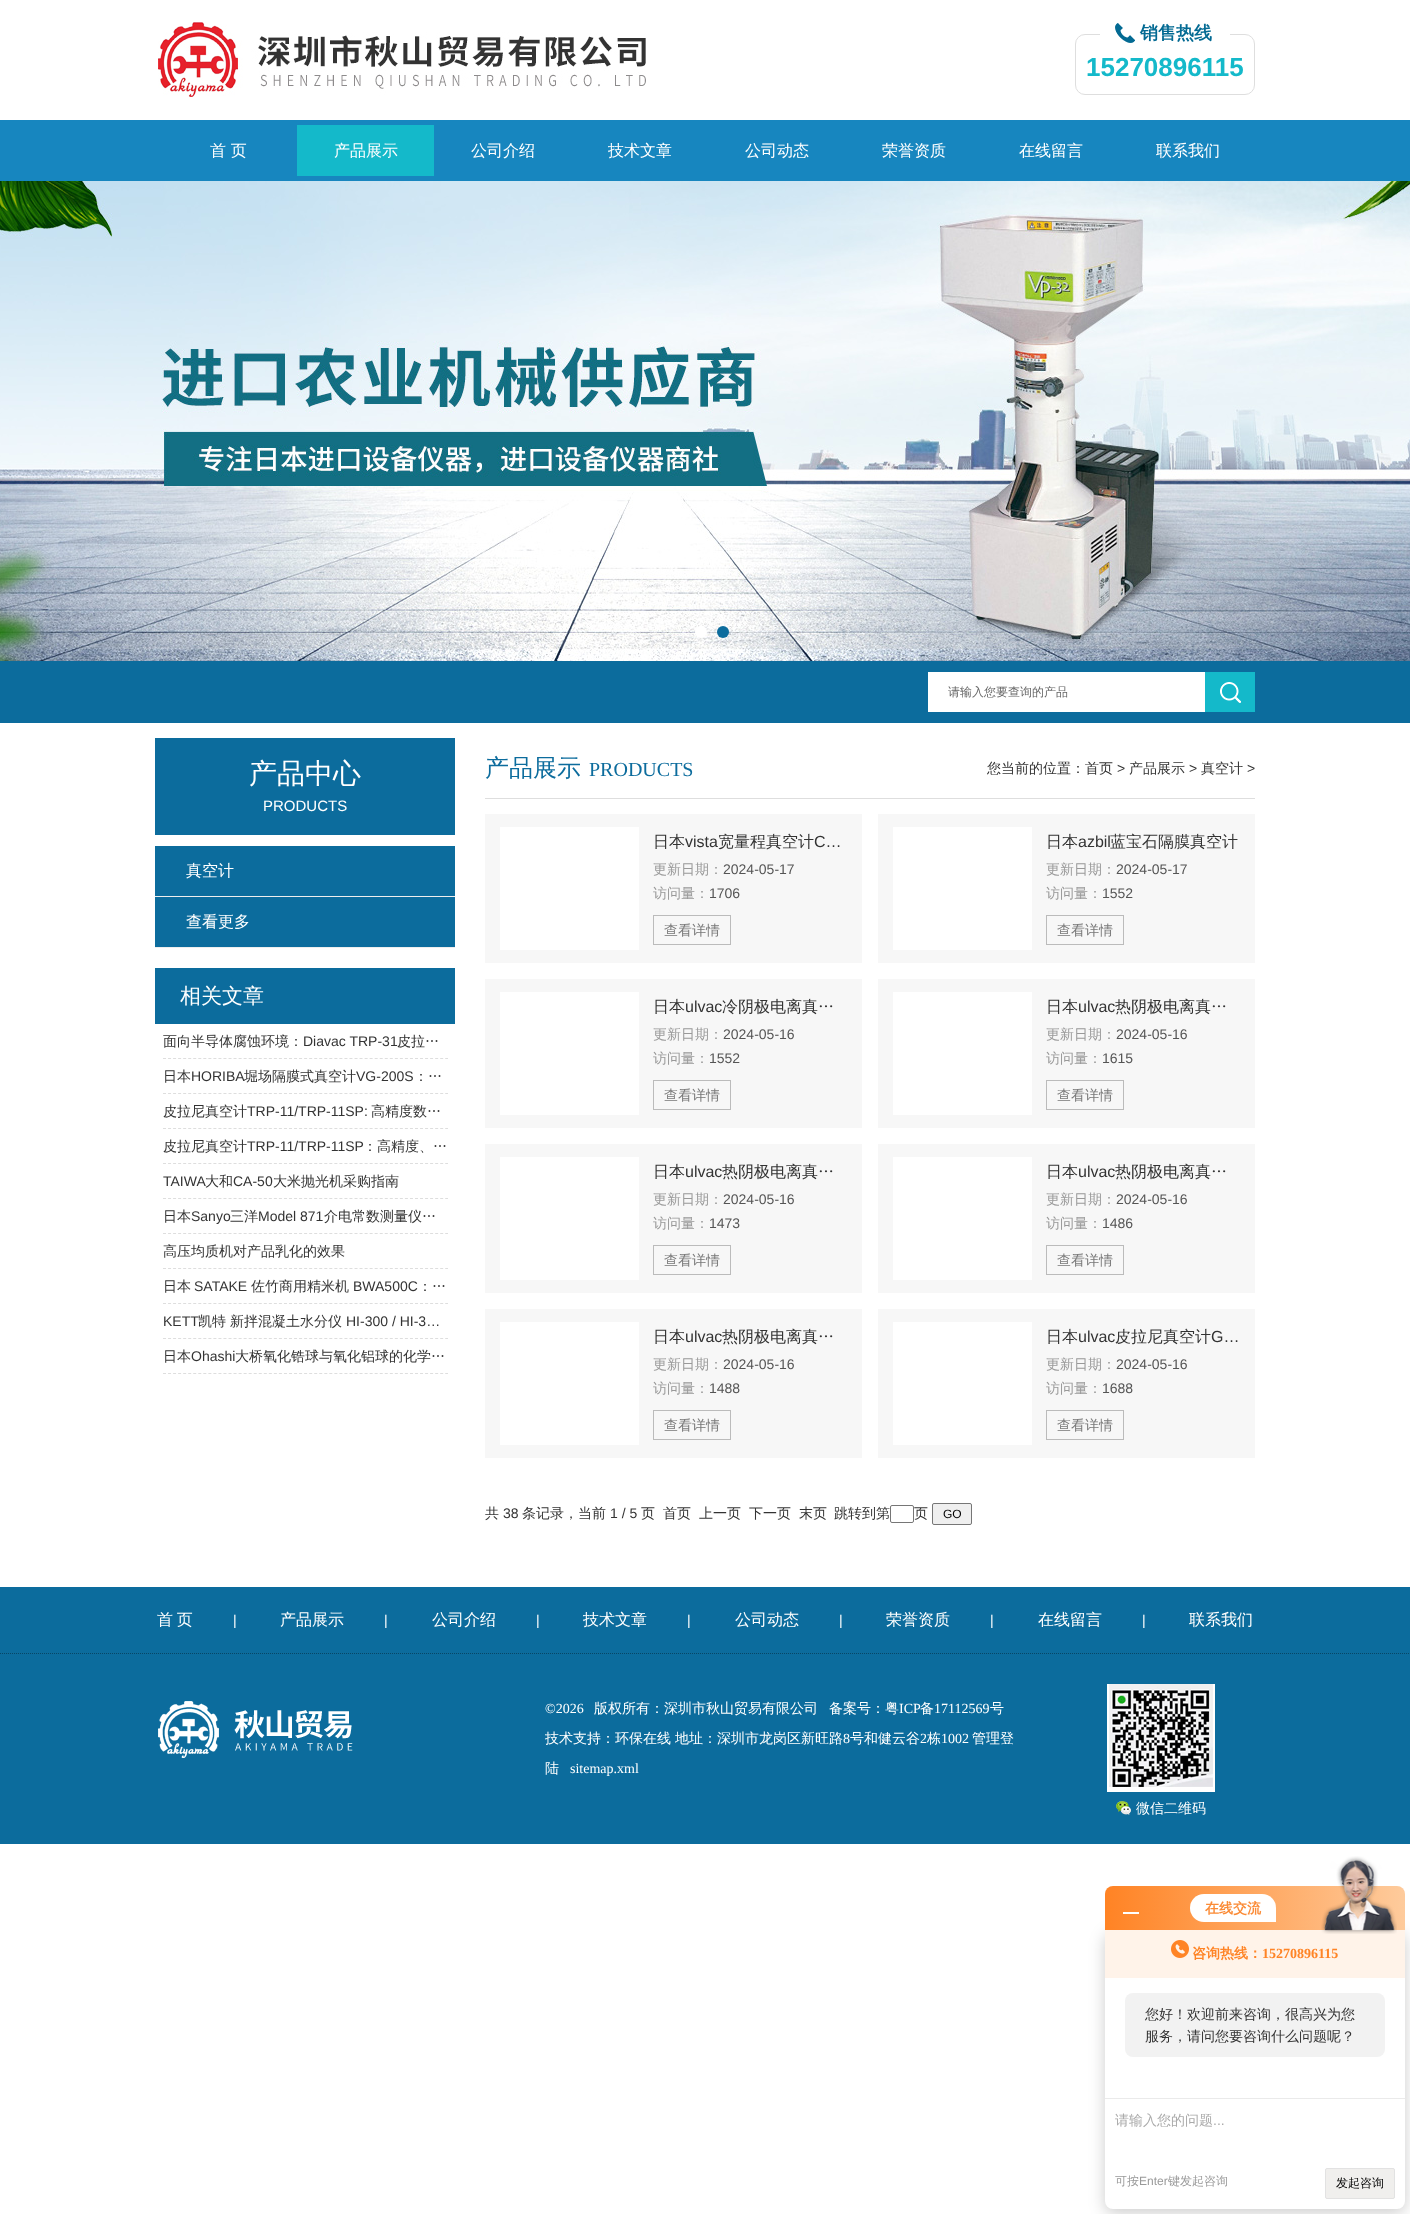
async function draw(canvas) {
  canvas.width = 1410;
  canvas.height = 2214;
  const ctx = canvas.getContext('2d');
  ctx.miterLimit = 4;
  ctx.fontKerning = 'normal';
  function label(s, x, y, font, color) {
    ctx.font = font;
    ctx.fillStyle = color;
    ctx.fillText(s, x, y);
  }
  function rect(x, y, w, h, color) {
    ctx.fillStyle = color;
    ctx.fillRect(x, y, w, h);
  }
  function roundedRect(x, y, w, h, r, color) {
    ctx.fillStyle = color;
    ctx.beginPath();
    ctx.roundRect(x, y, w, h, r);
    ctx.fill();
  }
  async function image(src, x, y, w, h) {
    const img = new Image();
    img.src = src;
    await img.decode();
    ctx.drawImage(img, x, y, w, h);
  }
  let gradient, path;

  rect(0, 0, 1410, 2214, '#fff');
  await image('assets/img1.png', 158, 22, 488, 75);
  ctx.beginPath();
  ctx.roundRect(1075.5, 34.5, 179, 60, 9.5);
  ctx.strokeStyle = '#dedede';
  ctx.stroke();
  rect(1100, 34, 130, 1, '#fff');
  await image('assets/img2.png', 1115, 23, 20, 20);
  label('销售热线', 1140, 39, 'bold 18px WenQuanYi Zen Hei', '#036a93');
  label('15270896115', 1086, 76, 'bold 26px Liberation Sans', '#14b9ca');
  rect(0, 120, 1410, 61, '#1786bf');
  label('首 页', 210, 156, '500 16px WenQuanYi Zen Hei', '#fff');
  rect(297, 125, 137, 51, '#14b9ca');
  label('产品展示', 334, 156, '500 16px WenQuanYi Zen Hei', '#fff');
  label('公司介绍', 471, 156, '500 16px WenQuanYi Zen Hei', '#fff');
  label('技术文章', 608, 156, '500 16px WenQuanYi Zen Hei', '#fff');
  label('公司动态', 745, 156, '500 16px WenQuanYi Zen Hei', '#fff');
  label('荣誉资质', 882, 156, '500 16px WenQuanYi Zen Hei', '#fff');
  label('在线留言', 1019, 156, '500 16px WenQuanYi Zen Hei', '#fff');
  label('联系我们', 1156, 156, '500 16px WenQuanYi Zen Hei', '#fff');
  await image('assets/img3.png', 0, 181, 1410, 480);
  ctx.beginPath();
  ctx.arc(701, 632, 6, 0, 2 * Math.PI);
  ctx.fill();
  ctx.fillStyle = '#0c6c9d';
  ctx.beginPath();
  ctx.arc(723, 632, 6, 0, 2 * Math.PI);
  ctx.fill();
  rect(0, 661, 1410, 62, '#0c6c9d');
  rect(928, 672, 277, 40, '#fff');
  label('请输入您要查询的产品', 948, 696, '500 12px WenQuanYi Zen Hei', '#666');
  rect(1205, 672, 50, 40, '#14b9ca');
  await image('assets/img4.png', 1220, 682, 21, 21);
  rect(155, 738, 300, 97, '#0c6c9d');
  label('产品中心', 249, 783, '500 28px WenQuanYi Zen Hei', '#fff');
  label('PRODUCTS', 263, 811, '15px Liberation Sans', '#fff');
  rect(155, 896, 300, 1, '#eee');
  rect(155, 846, 300, 50, '#0c6c9d');
  label('真空计', 186, 876, '500 16px WenQuanYi Zen Hei', '#fff');
  rect(155, 947, 300, 1, '#eee');
  rect(155, 897, 300, 50, '#0c6c9d');
  label('查看更多', 186, 927, '500 16px WenQuanYi Zen Hei', '#fff');
  rect(155, 968, 300, 56, '#0c6c9d');
  label('相关文章', 180, 1003, '500 21px WenQuanYi Zen Hei', '#fff');
  path = new Path2D('M163 1058.5H448');
  ctx.setLineDash([3, 2.04]);
  ctx.stroke(path);
  label('面向半导体腐蚀环境：', 163, 1046, '500 14px WenQuanYi Zen Hei', '#333');
  label('Diavac TRP-31', 303, 1046, '14px Liberation Sans', '#333');
  label('皮拉…', 397, 1046, '500 14px WenQuanYi Zen Hei', '#333');
  path = new Path2D('M163 1093.5H448');
  ctx.stroke(path);
  label('日本', 163, 1081, '500 14px WenQuanYi Zen Hei', '#333');
  label('HORIBA', 191, 1081, '14px Liberation Sans', '#333');
  label('堀场隔膜式真空计', 244, 1081, '500 14px WenQuanYi Zen Hei', '#333');
  label('VG-200S', 356, 1081, '14px Liberation Sans', '#333');
  label('：…', 414, 1081, '500 14px WenQuanYi Zen Hei', '#333');
  path = new Path2D('M163 1128.5H448');
  ctx.stroke(path);
  label('皮拉尼真空计', 163, 1116, '500 14px WenQuanYi Zen Hei', '#333');
  label('TRP-11/TRP-11SP:', 247, 1116, '14px Liberation Sans', '#333');
  label('高精度数…', 371, 1116, '500 14px WenQuanYi Zen Hei', '#333');
  path = new Path2D('M163 1163.5H448');
  ctx.stroke(path);
  label('皮拉尼真空计', 163, 1151, '500 14px WenQuanYi Zen Hei', '#333');
  label('TRP-11/TRP-11SP', 247, 1151, '14px Liberation Sans', '#333');
  label('：高精度、…', 363, 1151, '500 14px WenQuanYi Zen Hei', '#333');
  path = new Path2D('M163 1198.5H448');
  ctx.stroke(path);
  label('TAIWA', 163, 1186, '14px Liberation Sans', '#333');
  label('大和', 205, 1186, '500 14px WenQuanYi Zen Hei', '#333');
  label('CA-50', 233, 1186, '14px Liberation Sans', '#333');
  label('大米抛光机采购指南', 273, 1186, '500 14px WenQuanYi Zen Hei', '#333');
  path = new Path2D('M163 1233.5H448');
  ctx.stroke(path);
  label('日本', 163, 1221, '500 14px WenQuanYi Zen Hei', '#333');
  label('Sanyo', 191, 1221, '14px Liberation Sans', '#333');
  label('三洋', 230, 1221, '500 14px WenQuanYi Zen Hei', '#333');
  label('Model 871', 258, 1221, '14px Liberation Sans', '#333');
  label('介电常数测量仪…', 324, 1221, '500 14px WenQuanYi Zen Hei', '#333');
  path = new Path2D('M163 1268.5H448');
  ctx.stroke(path);
  label('高压均质机对产品乳化的效果', 163, 1256, '500 14px WenQuanYi Zen Hei', '#333');
  path = new Path2D('M163 1303.5H448');
  ctx.stroke(path);
  label('日本', 163, 1291, '500 14px WenQuanYi Zen Hei', '#333');
  label('SATAKE', 194, 1291, '14px Liberation Sans', '#333');
  label('佐竹商用精米机', 251, 1291, '500 14px WenQuanYi Zen Hei', '#333');
  label('BWA500C', 353, 1291, '14px Liberation Sans', '#333');
  label('：…', 418, 1291, '500 14px WenQuanYi Zen Hei', '#333');
  path = new Path2D('M163 1338.5H448');
  ctx.stroke(path);
  label('KETT', 163, 1326, '14px Liberation Sans', '#333');
  label('凯特', 198, 1326, '500 14px WenQuanYi Zen Hei', '#333');
  label('新拌混凝土水分仪', 230, 1326, '500 14px WenQuanYi Zen Hei', '#333');
  label('HI-300 / HI-3…', 346, 1326, '14px Liberation Sans', '#333');
  path = new Path2D('M163 1373.5H448');
  ctx.stroke(path);
  label('日本', 163, 1361, '500 14px WenQuanYi Zen Hei', '#333');
  label('Ohashi', 191, 1361, '14px Liberation Sans', '#333');
  label('大桥氧化锆球与氧化铝球的化学…', 235, 1361, '500 14px WenQuanYi Zen Hei', '#333');
  rect(485, 798, 770, 1, '#dedede');
  label('产品展示', 485, 776, '500 24px WenQuanYi Zen Hei', '#0c6c9d');
  label('PRODUCTS', 589, 776, '20px Liberation Serif', '#0c6c9d');
  label('您当前的位置：首页', 987, 773, '500 14px WenQuanYi Zen Hei', '#333');
  label('>', 1117, 773, '14px Liberation Sans', '#333');
  label('产品展示', 1129, 773, '500 14px WenQuanYi Zen Hei', '#333');
  label('>', 1189, 773, '14px Liberation Sans', '#333');
  label('真空计', 1201, 773, '500 14px WenQuanYi Zen Hei', '#333');
  label('>', 1247, 773, '14px Liberation Sans', '#333');
  rect(485, 814, 377, 149, '#f7f7f7');
  rect(500, 827, 139, 123, '#fff');
  label('日本', 653, 847, '500 16px WenQuanYi Zen Hei', '#333');
  label('vista', 685, 847, '16px Liberation Sans', '#333');
  label('宽量程真空计', 718, 847, '500 16px WenQuanYi Zen Hei', '#333');
  label('C…', 814, 847, '16px Liberation Sans', '#333');
  label('更新日期：', 653, 874, '500 14px WenQuanYi Zen Hei', '#999');
  label('2024-05-17', 723, 874, '14px Liberation Sans', '#555');
  label('访问量：', 653, 898, '500 14px WenQuanYi Zen Hei', '#999');
  label('1706', 709, 898, '14px Liberation Sans', '#555');
  ctx.strokeStyle = '#bbb';
  ctx.setLineDash([]);
  ctx.strokeRect(653.5, 915.5, 77, 29);
  label('查看详情', 664, 935, '500 14px WenQuanYi Zen Hei', '#787878');
  rect(878, 814, 377, 149, '#f7f7f7');
  rect(893, 827, 139, 123, '#fff');
  label('日本', 1046, 847, '500 16px WenQuanYi Zen Hei', '#333');
  label('azbil', 1078, 847, '16px Liberation Sans', '#333');
  label('蓝宝石隔膜真空计', 1110, 847, '500 16px WenQuanYi Zen Hei', '#333');
  label('更新日期：', 1046, 874, '500 14px WenQuanYi Zen Hei', '#999');
  label('2024-05-17', 1116, 874, '14px Liberation Sans', '#555');
  label('访问量：', 1046, 898, '500 14px WenQuanYi Zen Hei', '#999');
  label('1552', 1102, 898, '14px Liberation Sans', '#555');
  ctx.strokeRect(1046.5, 915.5, 77, 29);
  label('查看详情', 1057, 935, '500 14px WenQuanYi Zen Hei', '#787878');
  rect(485, 979, 377, 149, '#f7f7f7');
  rect(500, 992, 139, 123, '#fff');
  label('日本', 653, 1012, '500 16px WenQuanYi Zen Hei', '#333');
  label('ulvac', 685, 1012, '16px Liberation Sans', '#333');
  label('冷阴极电离真…', 722, 1012, '500 16px WenQuanYi Zen Hei', '#333');
  label('更新日期：', 653, 1039, '500 14px WenQuanYi Zen Hei', '#999');
  label('2024-05-16', 723, 1039, '14px Liberation Sans', '#555');
  label('访问量：', 653, 1063, '500 14px WenQuanYi Zen Hei', '#999');
  label('1552', 709, 1063, '14px Liberation Sans', '#555');
  ctx.strokeRect(653.5, 1080.5, 77, 29);
  label('查看详情', 664, 1100, '500 14px WenQuanYi Zen Hei', '#787878');
  rect(878, 979, 377, 149, '#f7f7f7');
  rect(893, 992, 139, 123, '#fff');
  label('日本', 1046, 1012, '500 16px WenQuanYi Zen Hei', '#333');
  label('ulvac', 1078, 1012, '16px Liberation Sans', '#333');
  label('热阴极电离真…', 1115, 1012, '500 16px WenQuanYi Zen Hei', '#333');
  label('更新日期：', 1046, 1039, '500 14px WenQuanYi Zen Hei', '#999');
  label('2024-05-16', 1116, 1039, '14px Liberation Sans', '#555');
  label('访问量：', 1046, 1063, '500 14px WenQuanYi Zen Hei', '#999');
  label('1615', 1102, 1063, '14px Liberation Sans', '#555');
  ctx.strokeRect(1046.5, 1080.5, 77, 29);
  label('查看详情', 1057, 1100, '500 14px WenQuanYi Zen Hei', '#787878');
  rect(485, 1144, 377, 149, '#f7f7f7');
  rect(500, 1157, 139, 123, '#fff');
  label('日本', 653, 1177, '500 16px WenQuanYi Zen Hei', '#333');
  label('ulvac', 685, 1177, '16px Liberation Sans', '#333');
  label('热阴极电离真…', 722, 1177, '500 16px WenQuanYi Zen Hei', '#333');
  label('更新日期：', 653, 1204, '500 14px WenQuanYi Zen Hei', '#999');
  label('2024-05-16', 723, 1204, '14px Liberation Sans', '#555');
  label('访问量：', 653, 1228, '500 14px WenQuanYi Zen Hei', '#999');
  label('1473', 709, 1228, '14px Liberation Sans', '#555');
  ctx.strokeRect(653.5, 1245.5, 77, 29);
  label('查看详情', 664, 1265, '500 14px WenQuanYi Zen Hei', '#787878');
  rect(878, 1144, 377, 149, '#f7f7f7');
  rect(893, 1157, 139, 123, '#fff');
  label('日本', 1046, 1177, '500 16px WenQuanYi Zen Hei', '#333');
  label('ulvac', 1078, 1177, '16px Liberation Sans', '#333');
  label('热阴极电离真…', 1115, 1177, '500 16px WenQuanYi Zen Hei', '#333');
  label('更新日期：', 1046, 1204, '500 14px WenQuanYi Zen Hei', '#999');
  label('2024-05-16', 1116, 1204, '14px Liberation Sans', '#555');
  label('访问量：', 1046, 1228, '500 14px WenQuanYi Zen Hei', '#999');
  label('1486', 1102, 1228, '14px Liberation Sans', '#555');
  ctx.strokeRect(1046.5, 1245.5, 77, 29);
  label('查看详情', 1057, 1265, '500 14px WenQuanYi Zen Hei', '#787878');
  rect(485, 1309, 377, 149, '#f7f7f7');
  rect(500, 1322, 139, 123, '#fff');
  label('日本', 653, 1342, '500 16px WenQuanYi Zen Hei', '#333');
  label('ulvac', 685, 1342, '16px Liberation Sans', '#333');
  label('热阴极电离真…', 722, 1342, '500 16px WenQuanYi Zen Hei', '#333');
  label('更新日期：', 653, 1369, '500 14px WenQuanYi Zen Hei', '#999');
  label('2024-05-16', 723, 1369, '14px Liberation Sans', '#555');
  label('访问量：', 653, 1393, '500 14px WenQuanYi Zen Hei', '#999');
  label('1488', 709, 1393, '14px Liberation Sans', '#555');
  ctx.strokeRect(653.5, 1410.5, 77, 29);
  label('查看详情', 664, 1430, '500 14px WenQuanYi Zen Hei', '#787878');
  rect(878, 1309, 377, 149, '#f7f7f7');
  rect(893, 1322, 139, 123, '#fff');
  label('日本', 1046, 1342, '500 16px WenQuanYi Zen Hei', '#333');
  label('ulvac', 1078, 1342, '16px Liberation Sans', '#333');
  label('皮拉尼真空计', 1115, 1342, '500 16px WenQuanYi Zen Hei', '#333');
  label('G…', 1211, 1342, '16px Liberation Sans', '#333');
  label('更新日期：', 1046, 1369, '500 14px WenQuanYi Zen Hei', '#999');
  label('2024-05-16', 1116, 1369, '14px Liberation Sans', '#555');
  label('访问量：', 1046, 1393, '500 14px WenQuanYi Zen Hei', '#999');
  label('1688', 1102, 1393, '14px Liberation Sans', '#555');
  ctx.strokeRect(1046.5, 1410.5, 77, 29);
  label('查看详情', 1057, 1430, '500 14px WenQuanYi Zen Hei', '#787878');
  label('共', 485, 1518, '500 14px WenQuanYi Zen Hei', '#333');
  label('38', 503, 1518, '14px Liberation Sans', '#333');
  label('条记录，当前', 522, 1518, '500 14px WenQuanYi Zen Hei', '#333');
  label('1 / 5', 610, 1518, '14px Liberation Sans', '#333');
  label('页', 641, 1518, '500 14px WenQuanYi Zen Hei', '#333');
  label('首页', 663, 1518, '500 14px WenQuanYi Zen Hei', '#333');
  label('上一页', 699, 1518, '500 14px WenQuanYi Zen Hei', '#333');
  label('下一页', 749, 1518, '500 14px WenQuanYi Zen Hei', '#333');
  label('末页', 799, 1518, '500 14px WenQuanYi Zen Hei', '#333');
  label('跳转到第', 834, 1518, '500 14px WenQuanYi Zen Hei', '#333');
  ctx.beginPath();
  ctx.roundRect(890.5, 1505.5, 23, 17, 1.5);
  ctx.strokeStyle = '#767676';
  ctx.stroke();
  label('页', 914, 1518, '500 14px WenQuanYi Zen Hei', '#333');
  ctx.fillStyle = '#efefef';
  ctx.beginPath();
  ctx.roundRect(932.5, 1503.5, 39, 21, 1.5);
  ctx.fill();
  ctx.stroke();
  label('GO', 943, 1518, '12px Liberation Sans', '#000');
  rect(0, 1587, 1410, 257, '#0c6c9d');
  path = new Path2D('M0 1653.5H1410');
  ctx.strokeStyle = '#084665';
  ctx.setLineDash([1, 1]);
  ctx.stroke(path);
  ctx.wordSpacing = '-1px';
  label('首 页', 157, 1625, '500 16px WenQuanYi Zen Hei', '#fff');
  ctx.wordSpacing = '0px';
  label('|', 233, 1625, '14px Liberation Sans', '#fff');
  label('产品展示', 280, 1625, '500 16px WenQuanYi Zen Hei', '#fff');
  label('|', 384, 1625, '14px Liberation Sans', '#fff');
  label('公司介绍', 432, 1625, '500 16px WenQuanYi Zen Hei', '#fff');
  label('|', 536, 1625, '14px Liberation Sans', '#fff');
  label('技术文章', 583, 1625, '500 16px WenQuanYi Zen Hei', '#fff');
  label('|', 687, 1625, '14px Liberation Sans', '#fff');
  label('公司动态', 735, 1625, '500 16px WenQuanYi Zen Hei', '#fff');
  label('|', 839, 1625, '14px Liberation Sans', '#fff');
  label('荣誉资质', 886, 1625, '500 16px WenQuanYi Zen Hei', '#fff');
  label('|', 990, 1625, '14px Liberation Sans', '#fff');
  label('在线留言', 1038, 1625, '500 16px WenQuanYi Zen Hei', '#fff');
  label('|', 1142, 1625, '14px Liberation Sans', '#fff');
  label('联系我们', 1189, 1625, '500 16px WenQuanYi Zen Hei', '#fff');
  await image('assets/img5.png', 158, 1701, 195, 57);
  label('©2026', 545, 1713, '14px Liberation Serif', '#fff');
  label('版权所有：深圳市秋山贸易有限公司', 594, 1713, '500 14px WenQuanYi Zen Hei', '#fff');
  label('备案号：粤', 829, 1713, '500 14px WenQuanYi Zen Hei', '#fff');
  label('ICP', 899, 1713, '14px Liberation Serif', '#fff');
  label('备', 920, 1713, '500 14px WenQuanYi Zen Hei', '#fff');
  label('17112569', 934, 1713, '14px Liberation Serif', '#fff');
  label('号', 990, 1713, '500 14px WenQuanYi Zen Hei', '#fff');
  label('技术支持：环保在线', 545, 1743, '500 14px WenQuanYi Zen Hei', '#fff');
  label('地址：深圳市龙岗区新旺路', 675, 1743, '500 14px WenQuanYi Zen Hei', '#fff');
  label('8', 843, 1743, '14px Liberation Serif', '#fff');
  label('号和健云谷', 850, 1743, '500 14px WenQuanYi Zen Hei', '#fff');
  label('2', 920, 1743, '14px Liberation Serif', '#fff');
  label('栋', 927, 1743, '500 14px WenQuanYi Zen Hei', '#fff');
  label('1002', 941, 1743, '14px Liberation Serif', '#fff');
  label('管理登', 972, 1743, '500 14px WenQuanYi Zen Hei', '#fff');
  label('陆', 545, 1773, '500 14px WenQuanYi Zen Hei', '#fff');
  label('sitemap.xml', 570, 1773, '14px Liberation Serif', '#fff');
  await image('assets/img6.png', 1107, 1684, 108, 108);
  await image('assets/img7.png', 1116, 1801, 15, 14);
  label('微信二维码', 1136, 1813, '500 14px WenQuanYi Zen Hei', '#fff');
  ctx.fillStyle = '#00000033';
  ctx.filter = 'blur(8px)';
  ctx.beginPath();
  ctx.roundRect(1105, 1934, 300, 279, 8);
  ctx.fill();
  ctx.filter = 'none';
  gradient = ctx.createLinearGradient(1105, 1908, 1405, 1908);
  gradient.addColorStop(0, '#ff8324');
  gradient.addColorStop(1, '#fecb9c');
  ctx.fillStyle = gradient;
  ctx.beginPath();
  ctx.roundRect(1105, 1886, 300, 44, [8, 8, 0, 0]);
  ctx.fill();
  rect(1123, 1912, 16, 2, '#fff');
  ctx.beginPath();
  ctx.roundRect(1190, 1894, 86, 28, [14, 14, 0, 14]);
  ctx.fill();
  label('在线交流', 1205, 1913, 'bold 14px WenQuanYi Zen Hei', '#fb8b36');
  ctx.fillStyle = '#fff';
  ctx.beginPath();
  ctx.roundRect(1105, 1930, 300, 279, [0, 0, 8, 8]);
  ctx.fill();
  rect(1105, 1930, 300, 48, '#fff3e9');
  await image('assets/img8.png', 1321, 1856, 76, 78);
  await image('assets/img9.png', 1171, 1940, 18, 18);
  label('咨询热线：', 1192, 1958, 'bold 14px WenQuanYi Zen Hei', '#ff8426');
  label('15270896115', 1262, 1958, 'bold 14px Liberation Serif', '#ff8426');
  roundedRect(1125, 1993, 260, 64, 8, '#f2f2f2');
  label('您好！欢迎前来咨询，很高兴为您', 1145, 2019, '500 14px WenQuanYi Zen Hei', '#333');
  label('服务，请问您要咨询什么问题呢？', 1145, 2041, '500 14px WenQuanYi Zen Hei', '#333');
  rect(1105, 2098, 300, 1, '#eaeaea');
  label('请输入您的问题', 1115, 2125, '500 14px WenQuanYi Zen Hei', '#aaa');
  label('...', 1213, 2125, '14px Liberation Sans', '#aaa');
  label('可按', 1115, 2185, '500 12px WenQuanYi Zen Hei', '#999');
  label('Enter', 1139, 2185, '12px Liberation Sans', '#999');
  label('键发起咨询', 1168, 2185, '500 12px WenQuanYi Zen Hei', '#999');
  ctx.fillStyle = '#f0efed';
  ctx.beginPath();
  ctx.roundRect(1325.5, 2168.5, 69, 30, 1.5);
  ctx.fill();
  ctx.strokeStyle = '#e2e2e2';
  ctx.setLineDash([]);
  ctx.stroke();
  label('发起咨询', 1336, 2187, '500 12px WenQuanYi Zen Hei', '#000');
}

draw(document.querySelector('canvas'));
